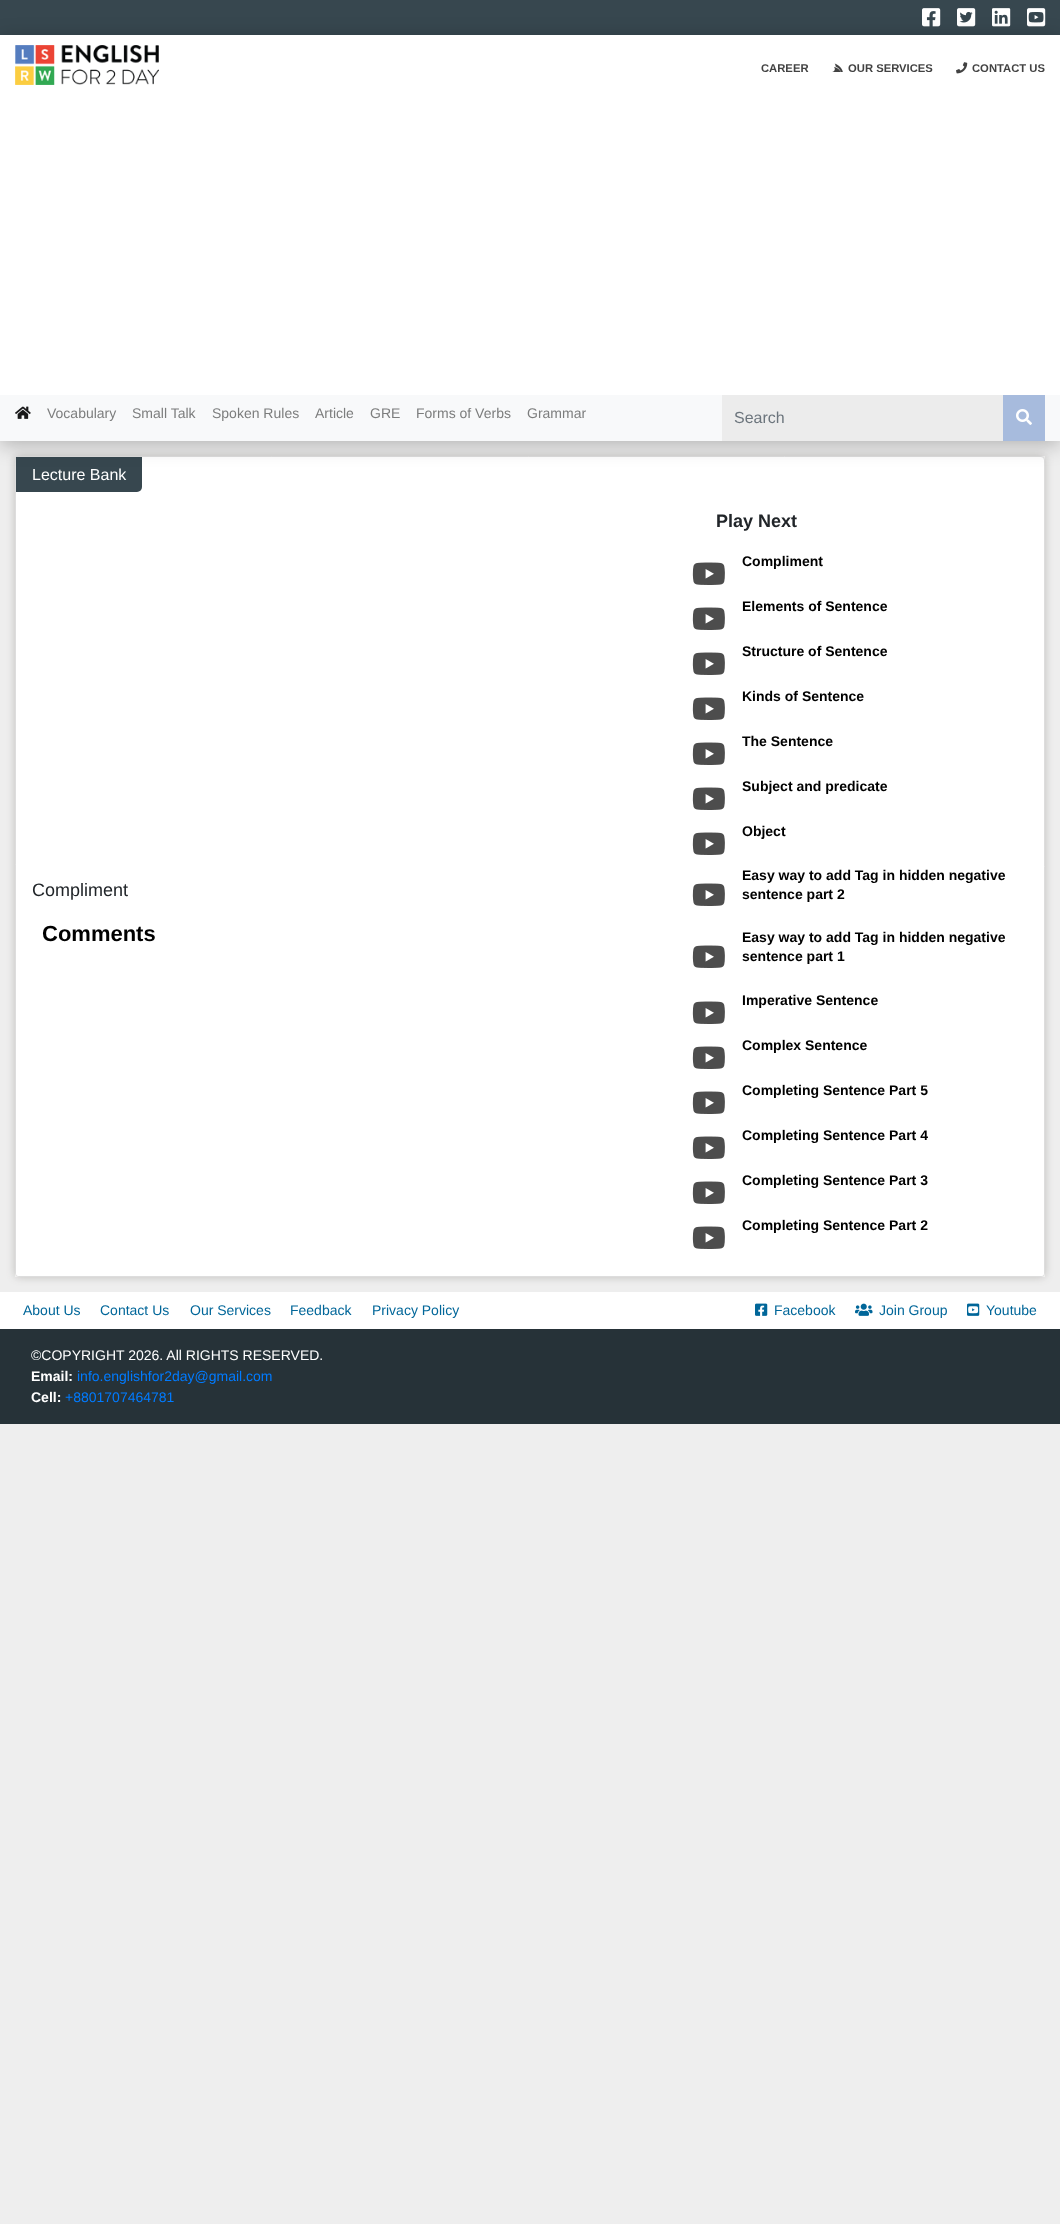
async function draw(canvas) {
  canvas.width = 1060;
  canvas.height = 2224;
  const ctx = canvas.getContext('2d');
  ctx.miterLimit = 4;
  ctx.fontKerning = 'normal';
  function label(s, x, y, font, color) {
    ctx.font = font;
    ctx.fillStyle = color;
    ctx.fillText(s, x, y);
  }
  function rect(x, y, w, h, color) {
    ctx.fillStyle = color;
    ctx.fillRect(x, y, w, h);
  }
  async function image(src, x, y, w, h) {
    const img = new Image();
    img.src = src;
    await img.decode();
    ctx.drawImage(img, x, y, w, h);
  }

  rect(0, 0, 1060, 2224, '#eee');
  rect(0, 0, 1060, 35, '#37474f');
  await image('assets/img1.png', 922, 8, 19, 19);
  await image('assets/img2.png', 957, 8, 19, 19);
  await image('assets/img3.png', 992, 8, 19, 19);
  await image('assets/img4.png', 1027, 8, 19, 19);
  rect(15, 456, 1030, 821, '#fff');
  ctx.fillStyle = '#3a332e42';
  ctx.filter = 'blur(4px)';
  ctx.beginPath();
  ctx.roundRect(15, 456, 1030, 821, 4);
  ctx.fill();
  ctx.filter = 'none';
  ctx.fillStyle = '#fff';
  ctx.beginPath();
  ctx.roundRect(15.5, 456.5, 1029, 820, [0, 3.5, 3.5, 3.5]);
  ctx.fill();
  ctx.strokeStyle = '#ddd';
  ctx.stroke();
  ctx.fillStyle = '#37474f';
  ctx.beginPath();
  ctx.roundRect(16, 457, 126, 35, [0, 0, 5, 0]);
  ctx.fill();
  ctx.fillStyle = '#00000040';
  ctx.filter = 'blur(10px)';
  ctx.beginPath();
  ctx.rect(0, 39, 1060, 406);
  ctx.fill();
  ctx.filter = 'none';
  rect(0, 35, 1060, 360, '#fff');
  await image('assets/img5.png', 15, 45, 144, 40);
  label('CAREER', 761, 72, 'bold 11.25px Liberation Sans', '#424242');
  await image('assets/img6.png', 832, 63, 11, 9);
  label('OUR SERVICES', 848, 72, 'bold 11.25px Liberation Sans', '#424242');
  await image('assets/img7.png', 956, 62, 12, 12);
  label('CONTACT US', 972, 72, 'bold 11.25px Liberation Sans', '#424242');
  rect(0, 395, 1060, 46, '#f8f9fa');
  await image('assets/img8.png', 15, 406, 16, 13);
  label('Vocabulary', 47, 418, '14px Liberation Sans', '#7c7d7d');
  label('Small Talk', 132, 418, '14px Liberation Sans', '#7c7d7d');
  label('Spoken Rules', 212, 418, '14px Liberation Sans', '#7c7d7d');
  label('Article', 315, 418, '14px Liberation Sans', '#7c7d7d');
  label('GRE', 370, 418, '14px Liberation Sans', '#7c7d7d');
  label('Forms of Verbs', 416, 418, '14px Liberation Sans', '#7c7d7d');
  label('Grammar', 527, 418, '14px Liberation Sans', '#7c7d7d');
  rect(722, 395, 281, 46, '#ececec');
  label('Search', 734, 423, '16px Liberation Sans', '#6c757d');
  rect(1003, 395, 42, 46, '#a7bbdd');
  await image('assets/img9.png', 1016, 409, 16, 16);
  label('Lecture Bank', 32, 480, '16px Liberation Sans', '#fff');
  ctx.beginPath();
  ctx.roundRect(16, 492, 1028, 784, [0, 0, 3, 3]);
  ctx.fill();
  label('Compliment', 32, 896, '18px Liberation Sans', '#212529');
  label('Comments', 42, 941, 'bold 22px Liberation Sans', '#000');
  label('Play Next', 716, 527, 'bold 18px Liberation Sans', '#212529');
  await image('assets/img10.png', 692, 562, 33, 23);
  label('Compliment', 742, 566, 'bold 14px Liberation Sans', '#000');
  await image('assets/img10.png', 692, 607, 33, 23);
  label('Elements of Sentence', 742, 611, 'bold 14px Liberation Sans', '#000');
  await image('assets/img10.png', 692, 652, 33, 23);
  label('Structure of Sentence', 742, 656, 'bold 14px Liberation Sans', '#000');
  await image('assets/img10.png', 692, 697, 33, 23);
  label('Kinds of Sentence', 742, 701, 'bold 14px Liberation Sans', '#000');
  await image('assets/img10.png', 692, 742, 33, 23);
  label('The Sentence', 742, 746, 'bold 14px Liberation Sans', '#000');
  await image('assets/img10.png', 692, 787, 33, 23);
  label('Subject and predicate', 742, 791, 'bold 14px Liberation Sans', '#000');
  await image('assets/img10.png', 692, 832, 33, 23);
  label('Object', 742, 836, 'bold 14px Liberation Sans', '#000');
  await image('assets/img10.png', 692, 883, 33, 23);
  label('Easy way to add Tag in hidden negative', 742, 880, 'bold 14px Liberation Sans', '#000');
  label('sentence part 2', 742, 899, 'bold 14px Liberation Sans', '#000');
  await image('assets/img10.png', 692, 945, 33, 23);
  label('Easy way to add Tag in hidden negative', 742, 942, 'bold 14px Liberation Sans', '#000');
  label('sentence part 1', 742, 961, 'bold 14px Liberation Sans', '#000');
  await image('assets/img10.png', 692, 1001, 33, 23);
  label('Imperative Sentence', 742, 1005, 'bold 14px Liberation Sans', '#000');
  await image('assets/img10.png', 692, 1046, 33, 23);
  label('Complex Sentence', 742, 1050, 'bold 14px Liberation Sans', '#000');
  await image('assets/img10.png', 692, 1091, 33, 23);
  label('Completing Sentence Part 5', 742, 1095, 'bold 14px Liberation Sans', '#000');
  await image('assets/img10.png', 692, 1136, 33, 23);
  label('Completing Sentence Part 4', 742, 1140, 'bold 14px Liberation Sans', '#000');
  await image('assets/img10.png', 692, 1181, 33, 23);
  label('Completing Sentence Part 3', 742, 1185, 'bold 14px Liberation Sans', '#000');
  await image('assets/img10.png', 692, 1226, 33, 23);
  label('Completing Sentence Part 2', 742, 1230, 'bold 14px Liberation Sans', '#000');
  rect(0, 1292, 1060, 37, '#fff');
  label('About Us', 23, 1315, '14px Liberation Sans', '#069');
  label('Contact Us', 100, 1315, '14px Liberation Sans', '#069');
  label('Our Services', 190, 1315, '14px Liberation Sans', '#069');
  label('Feedback', 290, 1315, '14px Liberation Sans', '#069');
  label('Privacy Policy', 372, 1315, '14px Liberation Sans', '#069');
  await image('assets/img11.png', 755, 1303, 13, 13);
  label('Facebook', 774, 1315, '14px Liberation Sans', '#069');
  await image('assets/img12.png', 855, 1303, 18, 13);
  label('Join Group', 879, 1315, '14px Liberation Sans', '#069');
  await image('assets/img13.png', 967, 1303, 13, 13);
  label('Youtube', 986, 1315, '14px Liberation Sans', '#069');
  rect(0, 1329, 1060, 95, '#263238');
  label('©COPYRIGHT 2026. All RIGHTS RESERVED.', 31, 1360, '14px Liberation Sans', '#fff');
  label('Email:', 31, 1381, 'bold 14px Liberation Sans', '#fff');
  label('info.englishfor2day@gmail.com', 77, 1381, '14px Liberation Sans', '#007bff');
  label('Cell:', 31, 1402, 'bold 14px Liberation Sans', '#fff');
  label('+8801707464781', 65, 1402, '14px Liberation Sans', '#007bff');
}

draw(document.querySelector('canvas'));
